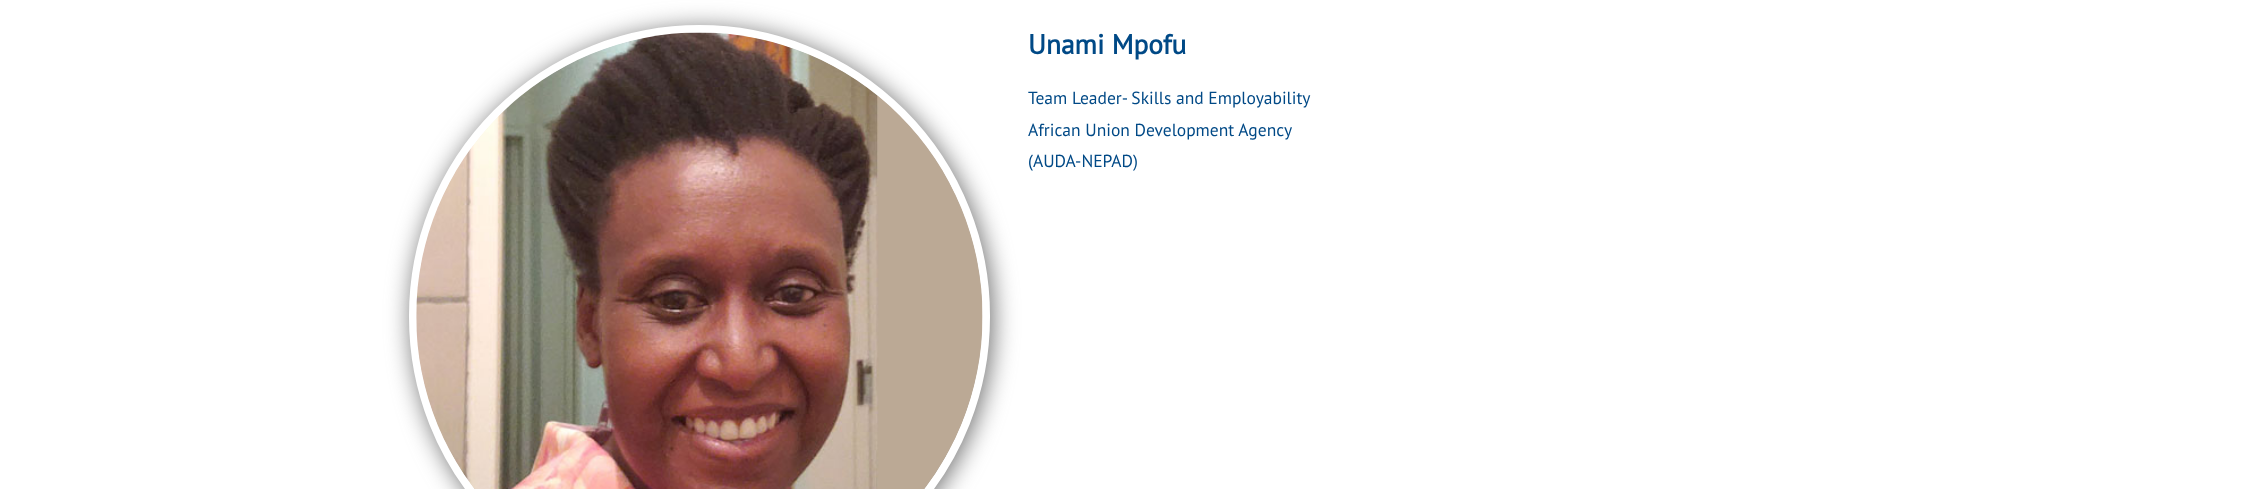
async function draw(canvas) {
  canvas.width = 2266;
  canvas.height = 489;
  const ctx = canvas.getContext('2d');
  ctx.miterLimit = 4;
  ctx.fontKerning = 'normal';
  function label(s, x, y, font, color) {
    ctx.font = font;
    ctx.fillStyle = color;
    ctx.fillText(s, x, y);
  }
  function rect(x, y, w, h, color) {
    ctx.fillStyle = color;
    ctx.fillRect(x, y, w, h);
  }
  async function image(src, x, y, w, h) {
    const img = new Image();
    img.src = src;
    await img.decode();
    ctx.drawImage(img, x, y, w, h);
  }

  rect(0, 0, 2266, 489, '#fff');
  ctx.fillStyle = '#717171';
  ctx.filter = 'blur(12.5px)';
  ctx.beginPath();
  ctx.roundRect(411, 28, 582, 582, 291);
  ctx.fill();
  ctx.filter = 'none';
  ctx.beginPath();
  ctx.roundRect(413, 29, 573, 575, 286.5);
  ctx.strokeStyle = '#fff';
  ctx.lineWidth = 8;
  ctx.stroke();
  await image('assets/img1.png', 416, 32, 567, 457);
  label('Unami Mpofu', 1028, 54, 'bold 27.5px PT Sans', '#004986');
  label('Team Leader- Skills and Employability', 1028, 104, '17.5px PT Sans', '#004986');
  label('African Union Development Agency', 1028, 136, '17.5px PT Sans', '#004986');
  label('(AUDA-NEPAD)', 1028, 167, '17.5px PT Sans', '#004986');
}

draw(document.querySelector('canvas'));
